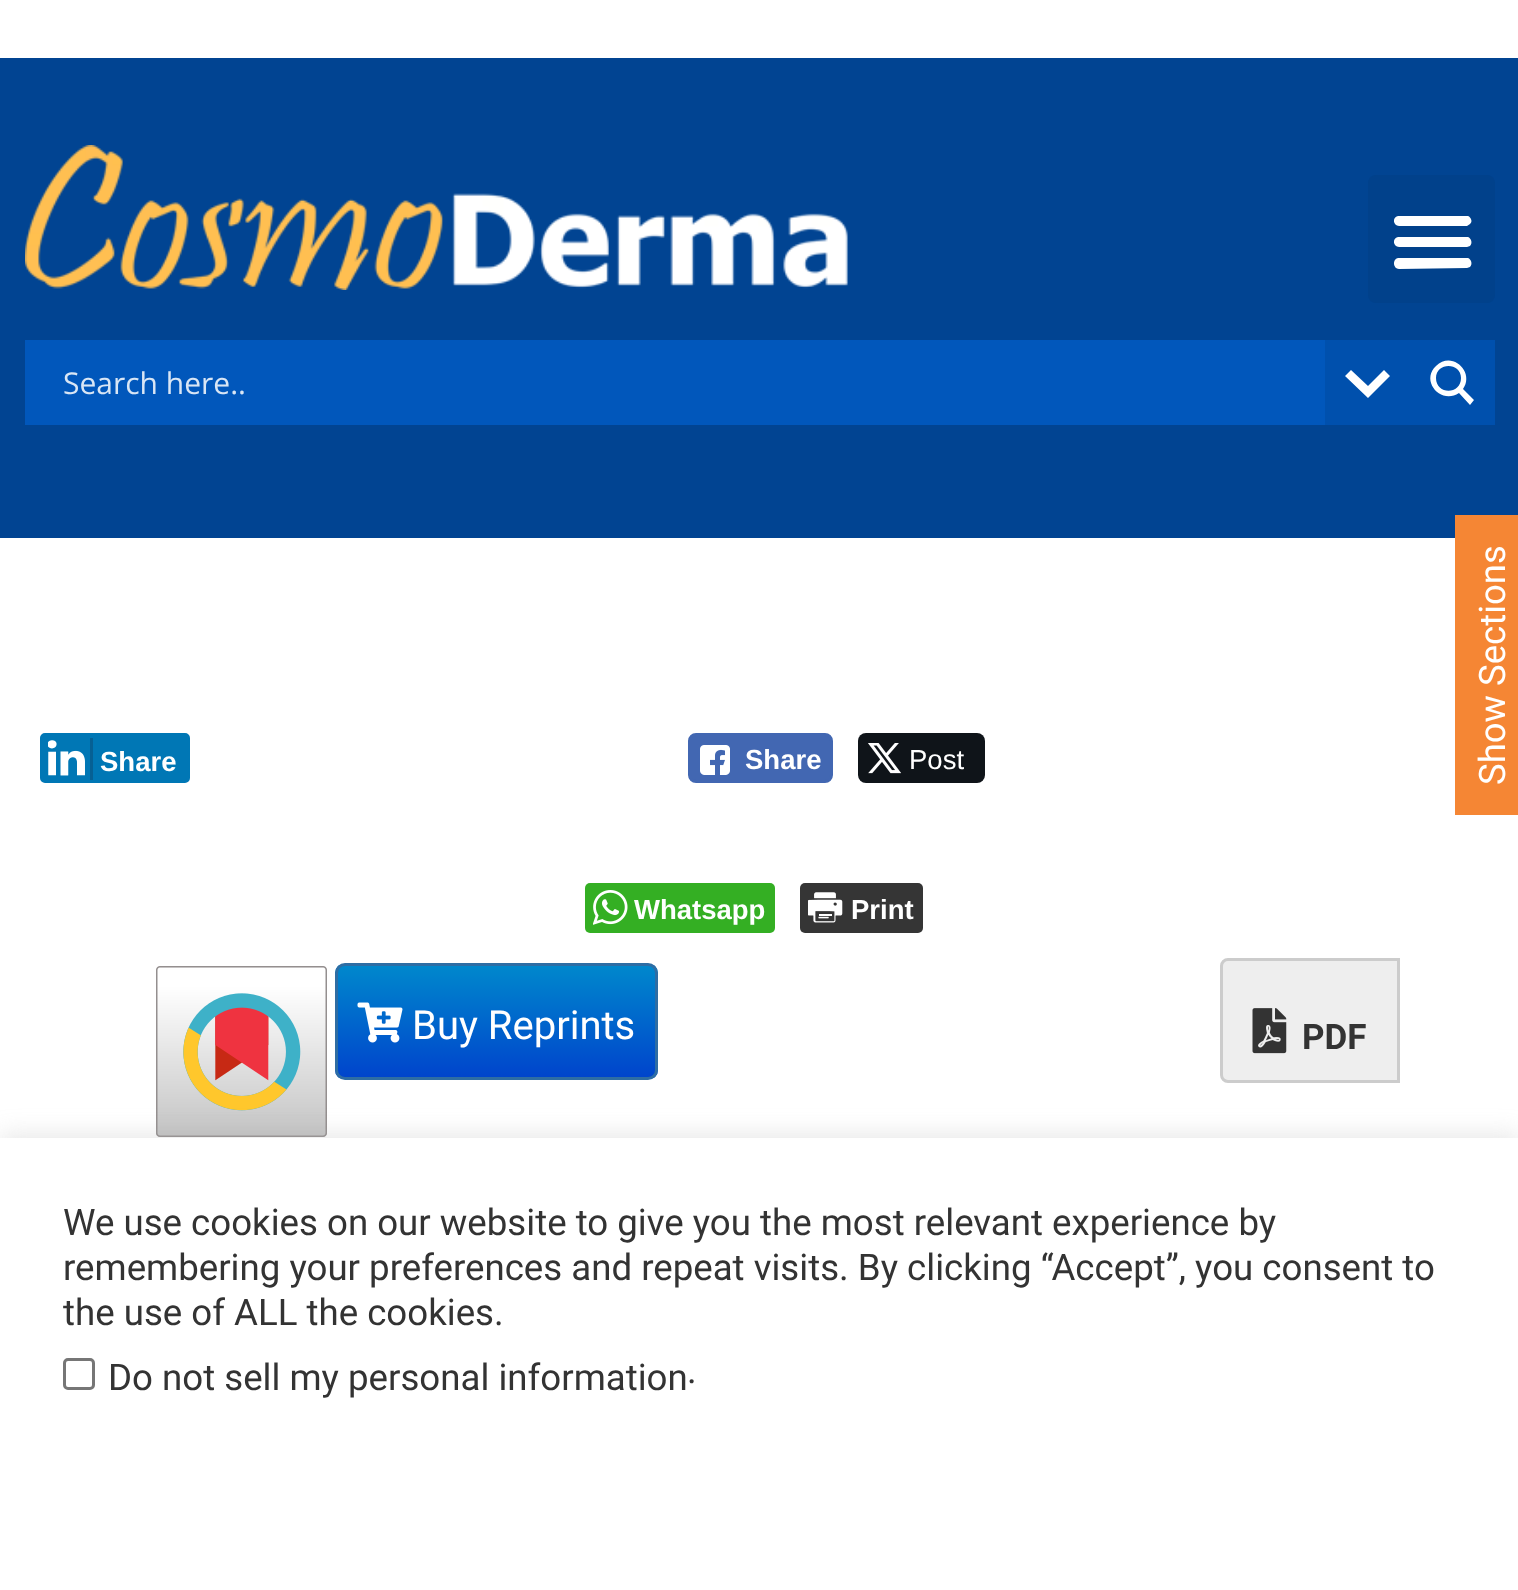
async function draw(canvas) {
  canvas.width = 1518;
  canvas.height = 1590;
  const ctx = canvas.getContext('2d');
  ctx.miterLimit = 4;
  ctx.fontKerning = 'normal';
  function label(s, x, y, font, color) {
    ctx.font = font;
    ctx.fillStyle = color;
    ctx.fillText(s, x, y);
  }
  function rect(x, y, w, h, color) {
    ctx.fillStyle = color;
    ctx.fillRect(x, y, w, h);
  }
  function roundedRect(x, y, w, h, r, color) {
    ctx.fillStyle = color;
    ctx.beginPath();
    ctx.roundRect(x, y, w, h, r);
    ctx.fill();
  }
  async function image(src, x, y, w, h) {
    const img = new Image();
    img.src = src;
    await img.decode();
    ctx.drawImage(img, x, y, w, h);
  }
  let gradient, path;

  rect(0, 0, 1518, 1590, '#fff');
  rect(0, 58, 1518, 480, '#014492');
  await image('assets/img1.png', 25, 145, 823, 145);
  roundedRect(1368, 175, 127, 128, 8, '#01418b');
  ctx.fillStyle = '#fff';
  path = new Path2D('M1399 226H1467L1470 224C1473 222 1471 217 1468 216H1398C1392 217 1393 226 1399 226ZM1399 247H1467L1470 246C1473 243 1471 238 1468 237H1398C1392 238 1393 247 1399 247ZM1399 269L1467 268L1470 267C1473 264 1471 259 1468 258H1398C1392 259 1393 269 1399 269Z');
  ctx.fill(path);
  rect(25, 340, 1300, 85, '#0157bb');
  rect(1325, 340, 170, 85, '#0050ad');
  ctx.fillStyle = '#fff';
  path = new Path2D('M1384 370L1390 376L1368 398L1345 376L1351 370L1368 386Z');
  ctx.fill(path);
  label('Search here..', 63, 394, '30px Open Sans', '#d9e6f5');
  ctx.fillStyle = '#fff';
  path = new Path2D('M1474 400L1463 389C1475 372 1452 350 1436 366C1420 381 1441 405 1459 393L1470 405ZM1436 378C1436 362 1461 362 1461 378C1461 395 1436 395 1436 378Z');
  ctx.fill(path);
  rect(1455, 515, 63, 300, '#f58634');
  ctx.font = '36.5px Roboto';
  ctx.fillStyle = '#fff';
  ctx.save();
  ctx.translate(1505, 785);
  ctx.rotate(-90 * Math.PI / 180);
  ctx.fillText('Show Sections', 0, 0);
  ctx.restore();
  ctx.fillStyle = '#0077b5';
  ctx.beginPath();
  ctx.roundRect(41.5, 734.5, 147, 47, 3.5);
  ctx.fill();
  ctx.strokeStyle = '#0077b5';
  ctx.lineWidth = 3;
  ctx.stroke();
  rect(90, 738, 3, 42, '#066094');
  await image('assets/img2.png', 48, 740, 37, 36);
  label('Share', 100, 771, 'bold 27.5px Liberation Sans', '#fff');
  ctx.fillStyle = '#4267b2';
  ctx.beginPath();
  ctx.roundRect(689.5, 734.5, 142, 47, 6.5);
  ctx.fill();
  ctx.strokeStyle = '#4267b2';
  ctx.stroke();
  await image('assets/img3.png', 700, 745, 30, 30);
  label('Share', 745, 769, 'bold 27.5px Liberation Sans', '#fff');
  roundedRect(858, 733, 127, 50, 8, '#0f1419');
  await image('assets/img4.png', 868, 743, 33, 31);
  label('Post', 909, 769, '27.5px Liberation Sans', '#fff');
  roundedRect(585, 883, 190, 50, 5, '#34af23');
  await image('assets/img5.png', 593, 890, 35, 35);
  label('Whatsapp', 634, 919, 'bold 27.5px Liberation Sans', '#fff');
  roundedRect(800, 883, 123, 50, 5, '#353535');
  await image('assets/img6.png', 808, 892, 35, 31);
  label('Print', 851, 919, 'bold 27.5px Liberation Sans', '#fff');
  await image('assets/img7.png', 156, 966, 171, 171);
  ctx.save();
  ctx.beginPath();
  ctx.roundRect(335, 963, 323, 117, 10);
  ctx.clip();
  gradient = ctx.createLinearGradient(496, 965, 496, 1078);
  gradient.addColorStop(0, '#08c');
  gradient.addColorStop(1, '#04c');
  ctx.fillStyle = gradient;
  ctx.fillRect(335, 965, 323, 113);
  ctx.restore();
  ctx.beginPath();
  ctx.roundRect(336.5, 964.5, 320, 114, 8.5);
  ctx.strokeStyle = '#2e6da4';
  ctx.stroke();
  await image('assets/img8.png', 357, 1002, 46, 41);
  label('Buy Reprints', 412, 1039, '40px Roboto', '#fff');
  ctx.fillStyle = '#eee';
  ctx.beginPath();
  ctx.roundRect(1221.5, 959.5, 177, 122, [6.5, 0, 0, 6.5]);
  ctx.fill();
  ctx.strokeStyle = '#ccc';
  ctx.stroke();
  await image('assets/img9.png', 1252, 1008, 35, 46);
  label('PDF', 1302, 1049, 'bold 35px Roboto', '#333');
  ctx.fillStyle = '#acabab4d';
  ctx.filter = 'blur(12.5px)';
  ctx.beginPath();
  ctx.rect(0, 1135, 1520, 453);
  ctx.fill();
  ctx.filter = 'none';
  rect(0, 1138, 1518, 452, '#fff');
  label('We use cookies on our website to give you the most relevant experience by', 63, 1235, '36.65px Roboto', '#333');
  label('remembering your preferences and repeat visits. By clicking “Accept”, you consent to', 63, 1280, '36.65px Roboto', '#333');
  label('the use of ALL the cookies.', 63, 1325, '36.65px Roboto', '#333');
  ctx.beginPath();
  ctx.roundRect(64.5, 1359.5, 29, 29, 3.5);
  ctx.strokeStyle = '#767676';
  ctx.stroke();
  label('Do not sell my personal information', 108, 1390, '36.65px Roboto', '#333');
  label('.', 687, 1383, '36.65px Roboto', '#333');
}

draw(document.querySelector('canvas'));
